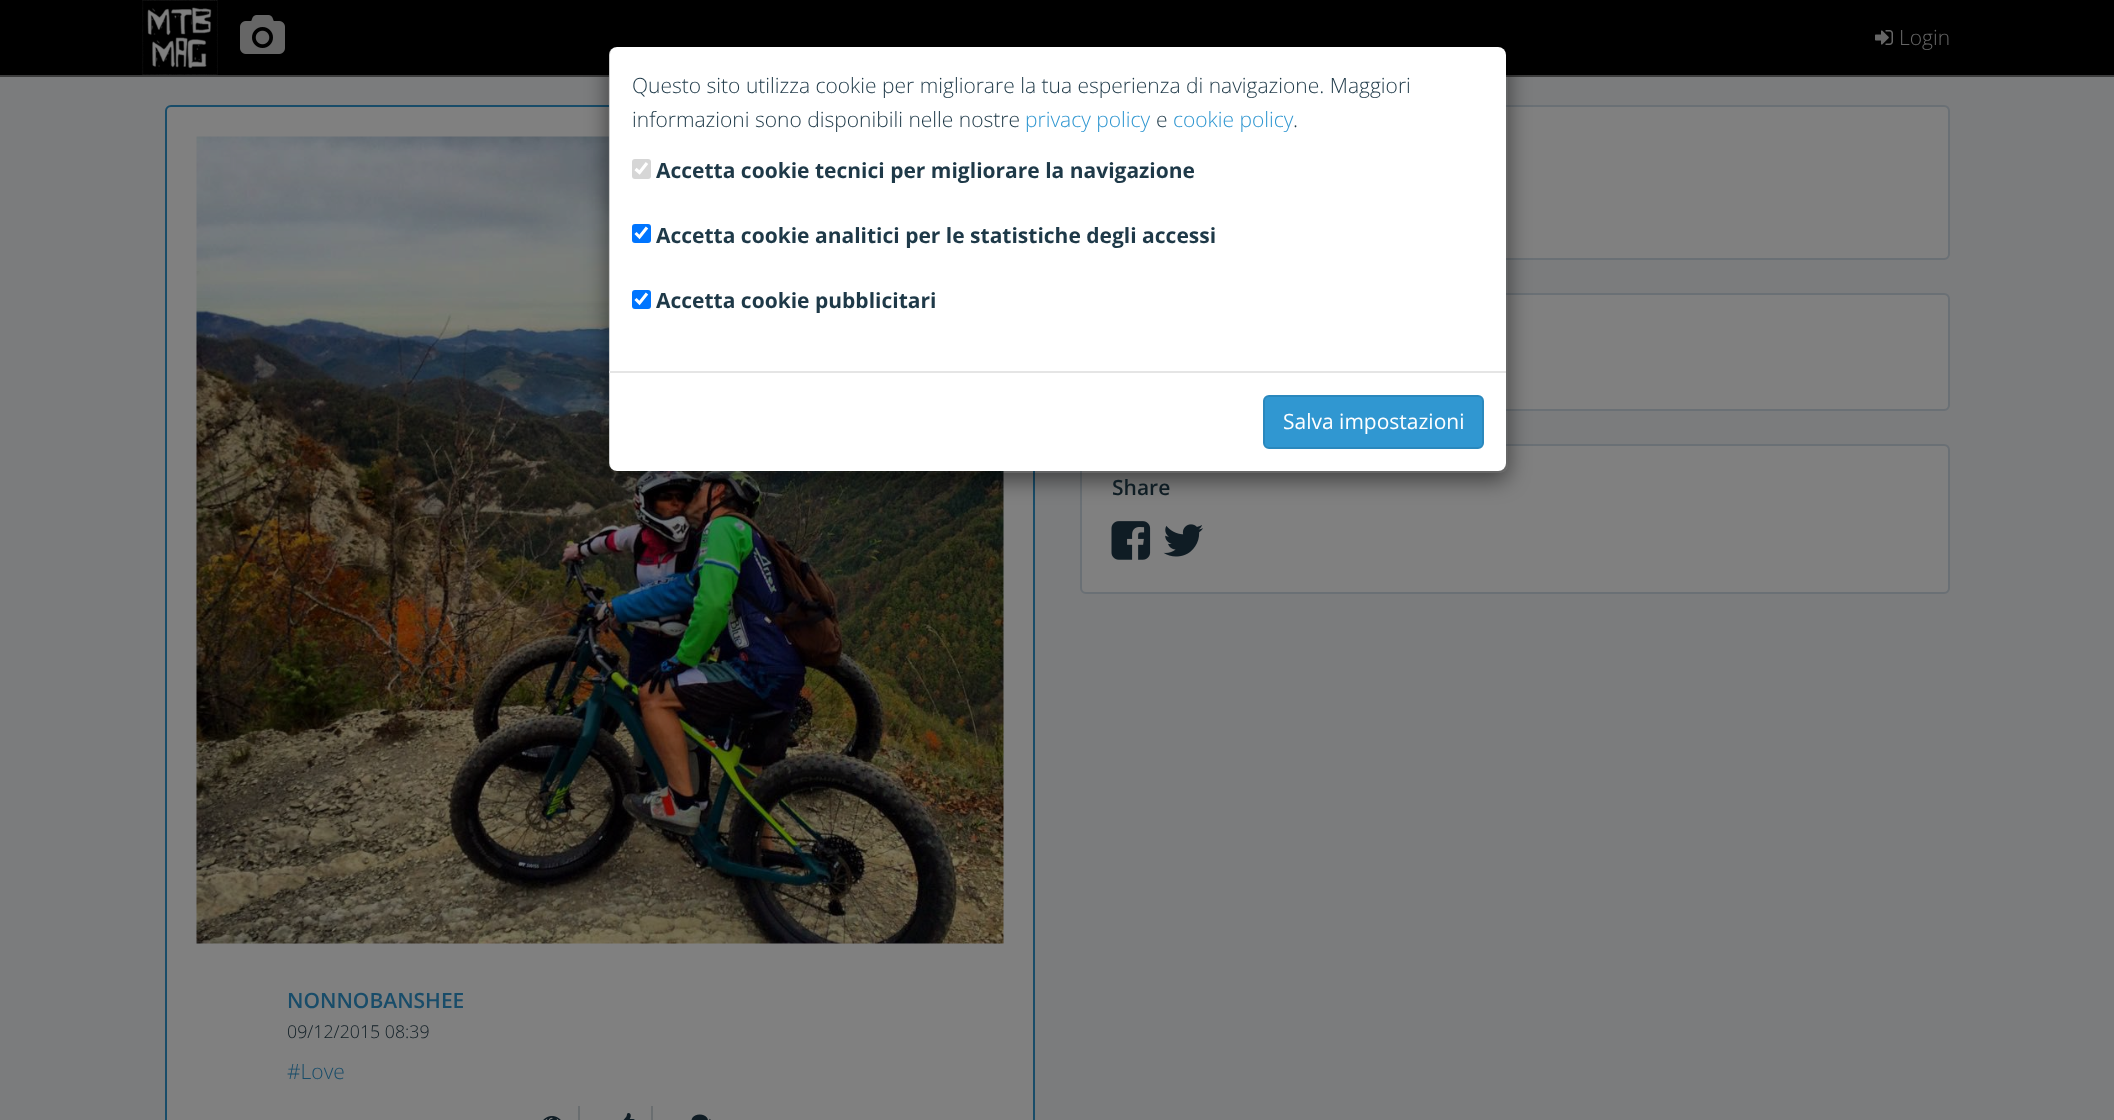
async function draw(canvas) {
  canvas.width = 2114;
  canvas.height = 1120;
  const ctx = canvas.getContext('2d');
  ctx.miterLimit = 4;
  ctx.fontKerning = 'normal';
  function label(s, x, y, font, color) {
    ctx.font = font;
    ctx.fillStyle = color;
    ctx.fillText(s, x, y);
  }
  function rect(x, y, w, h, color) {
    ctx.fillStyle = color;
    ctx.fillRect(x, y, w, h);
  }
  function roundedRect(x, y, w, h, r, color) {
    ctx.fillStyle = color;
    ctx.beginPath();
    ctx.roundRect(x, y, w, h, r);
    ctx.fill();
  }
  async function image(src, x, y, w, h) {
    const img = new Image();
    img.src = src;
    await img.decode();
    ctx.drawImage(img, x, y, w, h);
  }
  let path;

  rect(0, 0, 2114, 1120, '#7b7c7d');
  rect(0, 0, 2114, 75, '#000');
  rect(0, 75, 2114, 2, '#3c3c3c');
  await image('assets/img1.png', 142, 0, 76, 75);
  await image('assets/img2.png', 240, 15, 45, 39);
  await image('assets/img3.png', 1875, 30, 18, 15);
  label('Login', 1899, 45, '300 21px Open Sans', '#666');
  ctx.fillStyle = '#808080';
  ctx.beginPath();
  ctx.roundRect(1081, 106, 868, 153, 5);
  ctx.fill();
  ctx.strokeStyle = '#6a7075';
  ctx.lineWidth = 2;
  ctx.stroke();
  ctx.beginPath();
  ctx.roundRect(1081, 294, 868, 116, 5);
  ctx.fill();
  ctx.stroke();
  ctx.beginPath();
  ctx.roundRect(1081, 445, 868, 148, 5);
  ctx.fill();
  ctx.stroke();
  ctx.beginPath();
  ctx.roundRect(166, 106, 868, 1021, 5);
  ctx.fill();
  ctx.strokeStyle = '#184c69';
  ctx.stroke();
  await image('assets/img6.png', 196, 136, 808, 808);
  ctx.save();
  path = new Path2D('M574 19H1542V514H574ZM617 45H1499C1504 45 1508 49 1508 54V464C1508 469 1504 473 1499 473H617C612 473 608 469 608 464V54C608 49 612 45 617 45Z');
  ctx.clip(path, 'evenodd');
  ctx.fillStyle = '#00000080';
  ctx.filter = 'blur(11px)';
  ctx.beginPath();
  ctx.roundRect(608, 53, 900, 427, 9);
  ctx.fill();
  ctx.filter = 'none';
  ctx.restore();
  roundedRect(609, 47, 897, 424, 8, '#fff');
  ctx.beginPath();
  ctx.roundRect(609, 46, 898, 426, 8);
  ctx.strokeStyle = '#00000033';
  ctx.stroke();
  label('Questo sito utilizza cookie per migliorare la tua esperienza di navigazione. Maggiori', 632, 93, '300 21px Open Sans', '#1e3948');
  label('informazioni sono disponibili nelle nostre', 632, 127, '300 21px Open Sans', '#1e3948');
  label('privacy policy', 1025, 127, '300 21px Open Sans', '#3097d1');
  label('e', 1156, 127, '300 21px Open Sans', '#1e3948');
  label('cookie policy', 1173, 127, '300 21px Open Sans', '#3097d1');
  label('.', 1293, 127, '300 21px Open Sans', '#1e3948');
  roundedRect(632, 159, 19, 20, 3, '#d6d6d6');
  path = new Path2D('M635.5 169L639.5 172.5L647 163');
  ctx.strokeStyle = '#fff';
  ctx.lineWidth = 3.1;
  ctx.stroke(path);
  label('Accetta cookie tecnici per migliorare la navigazione', 656, 178, 'bold 21px Open Sans', '#1e3948');
  roundedRect(632, 224, 19, 19, 3, '#0075ff');
  path = new Path2D('M635.5 233L639.5 237L647 227.5');
  ctx.stroke(path);
  label('Accetta cookie analitici per le statistiche degli accessi', 656, 243, 'bold 21px Open Sans', '#1e3948');
  roundedRect(632, 290, 19, 19, 3, '#0075ff');
  path = new Path2D('M635.5 299L639.5 303L647 293.5');
  ctx.stroke(path);
  label('Accetta cookie pubblicitari', 656, 308, 'bold 21px Open Sans', '#1e3948');
  rect(609, 371, 897, 2, '#e5e5e5');
  ctx.fillStyle = '#3097d1';
  ctx.beginPath();
  ctx.roundRect(1264, 396, 219, 52, 5);
  ctx.fill();
  ctx.strokeStyle = '#2a88bd';
  ctx.lineWidth = 2;
  ctx.stroke();
  label('Salva impostazioni', 1283, 429, '21px Open Sans', '#fff');
  label('Share', 1112, 495, '600 21px Open Sans', '#0f1d24');
  await image('assets/img4.png', 1111, 521, 40, 39);
  await image('assets/img5.png', 1163, 524, 40, 33);
  label('NONNOBANSHEE', 287, 1008, '600 21px Open Sans', '#184c69');
  label('09/12/2015 08:39', 287, 1038, '300 17.75px Open Sans', '#0f1d24');
  label('#Love', 287, 1079, '300 21px Open Sans', '#184c69');
  rect(578, 1106, 2, 14, '#6a6e70');
  await image('assets/img7.png', 543, 1116, 18, 4);
  rect(651, 1106, 2, 14, '#6a6e70');
  await image('assets/img8.png', 623, 1113, 12, 7);
  await image('assets/img9.png', 691, 1114, 20, 6);
}

draw(document.querySelector('canvas'));
